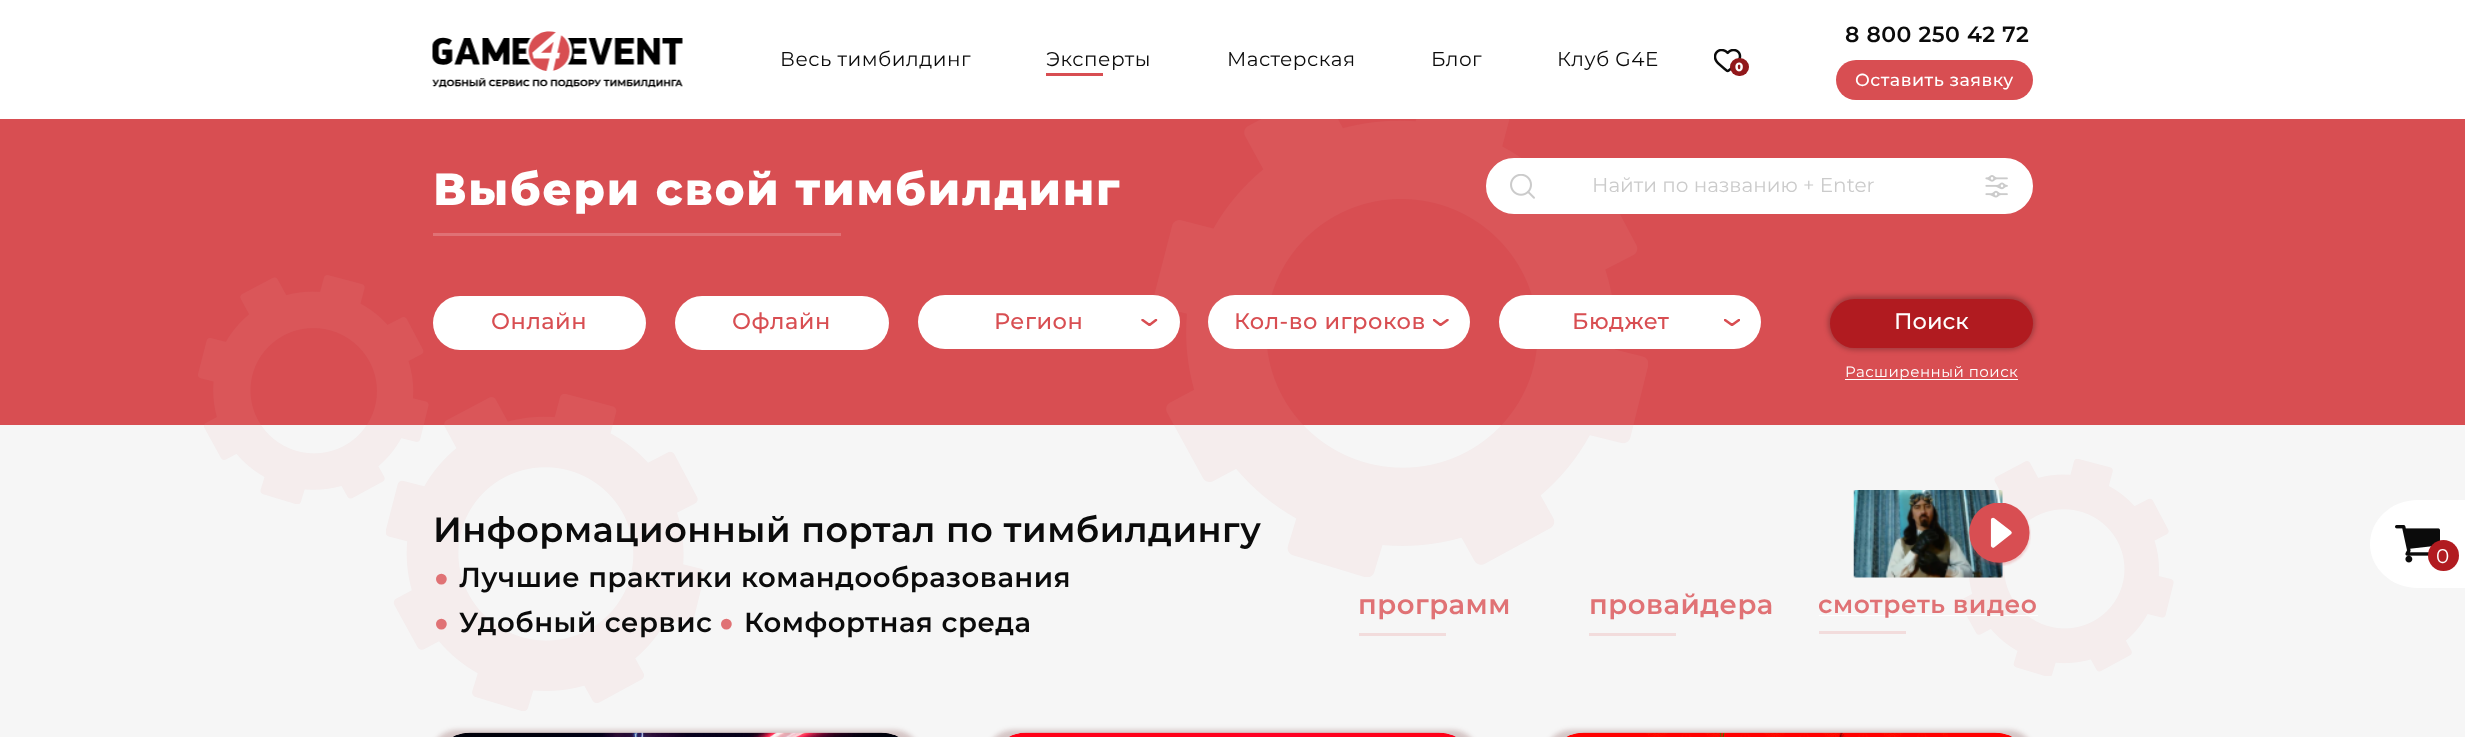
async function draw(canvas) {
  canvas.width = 2465;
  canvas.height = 737;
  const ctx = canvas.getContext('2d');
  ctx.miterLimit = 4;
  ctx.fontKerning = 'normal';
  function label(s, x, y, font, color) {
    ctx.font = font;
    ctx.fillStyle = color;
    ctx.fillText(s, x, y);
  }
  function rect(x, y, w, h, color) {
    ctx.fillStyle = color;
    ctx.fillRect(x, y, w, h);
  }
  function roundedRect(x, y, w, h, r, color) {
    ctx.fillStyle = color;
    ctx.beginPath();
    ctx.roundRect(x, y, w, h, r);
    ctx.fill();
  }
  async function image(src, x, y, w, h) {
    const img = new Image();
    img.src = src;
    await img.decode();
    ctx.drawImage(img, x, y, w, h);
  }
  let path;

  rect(0, 0, 2465, 737, '#fff');
  await image('assets/img1.png', 432, 31, 251, 57);
  ctx.letterSpacing = '0.5px';
  label('Весь тимбилдинг', 780, 66, '20px Montserrat', '#0b0b0b');
  label('Эксперты', 1046, 66, '20px Montserrat', '#0b0b0b');
  rect(1046, 73, 57, 3, '#d84e52');
  label('Мастерская', 1227, 66, '20px Montserrat', '#0b0b0b');
  label('Блог', 1431, 66, '20px Montserrat', '#0b0b0b');
  label('Клуб G4E', 1557, 66, '20px Montserrat', '#0b0b0b');
  await image('assets/img2.png', 1714, 49, 28, 24);
  roundedRect(1730, 58, 19, 18, 9, '#92181b');
  label('0', 1735, 71, '800 12px Montserrat', '#fff');
  label('8 800 250 42 72', 1845, 42, '600 22px Montserrat', '#0b0b0b');
  roundedRect(1836, 60, 197, 40, 20, '#d84e52');
  label('Оставить заявку', 1855, 86, '500 17.5px Montserrat', '#fff');
  rect(0, 425, 2465, 312, '#f6f6f6');
  rect(0, 119, 2465, 306, '#d84e52');
  await image('assets/img3.png', 1154, 119, 494, 458);
  ctx.letterSpacing = '1.8px';
  label('Выбери свой тимбилдинг', 433, 205, '800 45px Montserrat', '#fff');
  rect(433, 233, 408, 3, '#e07175');
  ctx.fillStyle = '#fff';
  ctx.beginPath();
  ctx.roundRect(1488, 160, 543, 52, 26);
  ctx.fill();
  ctx.strokeStyle = '#fff';
  ctx.lineWidth = 4;
  ctx.stroke();
  await image('assets/img4.png', 1510, 174, 25, 25);
  ctx.letterSpacing = '0px';
  label('Найти по названию + Enter', 1592, 192, '20px Montserrat', '#cbcbcb');
  await image('assets/img5.png', 1985, 175, 23, 23);
  await image('assets/img6.png', 198, 275, 231, 229);
  roundedRect(433, 296, 213, 54, 27, '#fff');
  ctx.letterSpacing = '0.5px';
  label('Онлайн', 491, 329, '500 22.5px Montserrat', '#d84e52');
  roundedRect(675, 296, 214, 54, 27, '#fff');
  label('Офлайн', 732, 329, '500 22.5px Montserrat', '#d84e52');
  roundedRect(918, 295, 262, 54, 27, '#fff');
  label('Регион', 994, 329, '500 22.5px Montserrat', '#d84e52');
  ctx.save();
  ctx.beginPath();
  ctx.rect(1141, 319, 17, 7);
  ctx.clip();
  path = new Path2D('M1142.5 320L1149.5 325L1156 320');
  ctx.strokeStyle = '#d84e52';
  ctx.lineWidth = 2.5;
  ctx.lineCap = 'round';
  ctx.lineJoin = 'round';
  ctx.stroke(path);
  ctx.restore();
  roundedRect(1208, 295, 262, 54, 27, '#fff');
  label('Кол-во игроков', 1234, 329, '500 22.5px Montserrat', '#d84e52');
  ctx.save();
  ctx.beginPath();
  ctx.rect(1433, 319, 16, 7);
  ctx.clip();
  path = new Path2D('M1434 320L1440.5 325L1447.5 320');
  ctx.strokeStyle = '#d84e52';
  ctx.lineWidth = 2.5;
  ctx.lineCap = 'round';
  ctx.lineJoin = 'round';
  ctx.stroke(path);
  ctx.restore();
  roundedRect(1499, 295, 262, 54, 27, '#fff');
  label('Бюджет', 1572, 329, '500 22.5px Montserrat', '#d84e52');
  ctx.save();
  ctx.beginPath();
  ctx.rect(1724, 319, 16, 7);
  ctx.clip();
  path = new Path2D('M1725 320L1732 325L1739 320');
  ctx.strokeStyle = '#d84e52';
  ctx.lineWidth = 2.5;
  ctx.lineCap = 'round';
  ctx.lineJoin = 'round';
  ctx.stroke(path);
  ctx.restore();
  ctx.fillStyle = '#00000040';
  ctx.filter = 'blur(2.5px)';
  ctx.beginPath();
  ctx.roundRect(1828, 296, 207, 54, 27);
  ctx.fill();
  ctx.filter = 'none';
  roundedRect(1830, 299, 203, 49, 24.5, '#b11b20');
  ctx.letterSpacing = '0px';
  label('Поиск', 1894, 329, '500 22.5px Montserrat', '#fff');
  rect(1845, 379, 173, 1, '#fff');
  ctx.letterSpacing = '0.5px';
  label('Расширенный поиск', 1845, 377, '15px Montserrat', '#fff');
  await image('assets/img7.png', 386, 394, 319, 317);
  await image('assets/img8.png', 1960, 459, 214, 217);
  label('Информационный портал по тимбилдингу', 433, 542, '600 35px Montserrat', '#0b0b0b');
  label('•', 433, 593, '600 50px Montserrat', '#e07275');
  label('Лучшие практики командообразования', 459, 587, '600 27.5px Montserrat', '#0b0b0b');
  label('•', 433, 638, '600 50px Montserrat', '#e07275');
  label('Удобный сервис', 459, 632, '600 27.5px Montserrat', '#0b0b0b');
  label('•', 718, 638, '600 50px Montserrat', '#e07275');
  label('Комфортная среда', 744, 632, '600 27.5px Montserrat', '#0b0b0b');
  label('программ', 1358, 614, '600 27.5px Montserrat', '#e07275');
  rect(1359, 633, 87, 3, '#f2dcdc');
  label('провайдера', 1589, 614, '600 27.5px Montserrat', '#e07275');
  rect(1589, 633, 87, 3, '#f2dcdc');
  await image('assets/img9.png', 1853, 490, 150, 88);
  await image('assets/img10.png', 1968, 503, 63, 63);
  rect(1819, 615, 219, 1, '#fff');
  label('смотреть видео', 1818, 613, '600 25px Montserrat', '#e07275');
  rect(1819, 631, 87, 3, '#f2dcdc');
  ctx.fillStyle = '#712f3140';
  ctx.filter = 'blur(2.5px)';
  ctx.beginPath();
  ctx.roundRect(430, 730, 491, 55, 40);
  ctx.fill();
  ctx.filter = 'none';
  await image('assets/img11.png', 453, 732, 446, 5);
  ctx.filter = 'blur(2.5px)';
  ctx.beginPath();
  ctx.roundRect(986, 730, 493, 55, 40);
  ctx.fill();
  ctx.filter = 'none';
  await image('assets/img12.png', 1009, 732, 447, 5);
  ctx.filter = 'blur(2.5px)';
  ctx.beginPath();
  ctx.roundRect(1544, 730, 491, 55, 40);
  ctx.fill();
  ctx.filter = 'none';
  await image('assets/img13.png', 1566, 732, 446, 5);
  ctx.fillStyle = '#fff';
  path = new Path2D('M2418 500H2465V588H2418C2391 588 2370 568 2370 544C2370 520 2391 500 2418 500Z');
  ctx.fill(path);
  await image('assets/img14.png', 2395, 525, 45, 38);
  ctx.fillStyle = '#b11b20';
  ctx.beginPath();
  ctx.arc(2443.5, 555.5, 15.5, 0, 2 * Math.PI);
  ctx.fill();
  label('0', 2436, 563, '20px Montserrat', '#fff');
}

draw(document.querySelector('canvas'));
